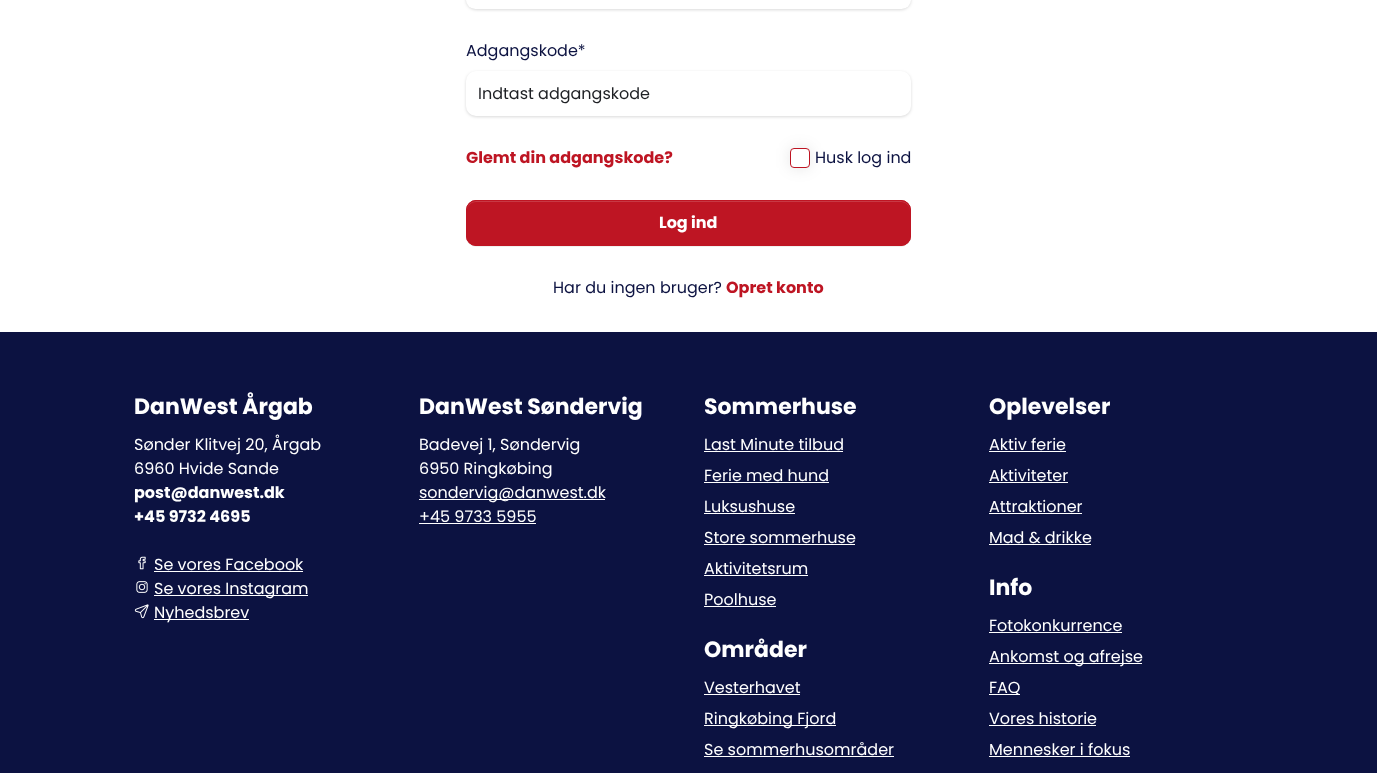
async function draw(canvas) {
  canvas.width = 1377;
  canvas.height = 773;
  const ctx = canvas.getContext('2d');
  ctx.miterLimit = 4;
  ctx.fontKerning = 'normal';
  function label(s, x, y, font, color) {
    ctx.font = font;
    ctx.fillStyle = color;
    ctx.fillText(s, x, y);
  }
  function rect(x, y, w, h, color) {
    ctx.fillStyle = color;
    ctx.fillRect(x, y, w, h);
  }
  function roundedRect(x, y, w, h, r, color) {
    ctx.fillStyle = color;
    ctx.beginPath();
    ctx.roundRect(x, y, w, h, r);
    ctx.fill();
  }
  async function image(src, x, y, w, h) {
    const img = new Image();
    img.src = src;
    await img.decode();
    ctx.drawImage(img, x, y, w, h);
  }
  let path;

  rect(0, 0, 1377, 773, '#fff');
  ctx.fillStyle = '#00000026';
  ctx.filter = 'blur(1.5px)';
  ctx.beginPath();
  ctx.roundRect(466, -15, 445, 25, 10);
  ctx.fill();
  ctx.filter = 'none';
  roundedRect(466, -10, 445, 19, 10, '#fff');
  label('Adgangskode*', 466, 56, '16px Poppins', '#0c1241');
  ctx.fillStyle = '#00000026';
  ctx.filter = 'blur(1.5px)';
  ctx.beginPath();
  ctx.roundRect(466, 72, 445, 45, 10);
  ctx.fill();
  ctx.filter = 'none';
  roundedRect(466, 71, 445, 45, 10, '#fff');
  label('Indtast adgangskode', 478, 99, '16px Poppins', '#1e2024');
  label('Glemt din adgangskode?', 466, 163, 'bold 16px Poppins', '#be1523');
  ctx.fillStyle = '#0000001a';
  ctx.filter = 'blur(7.5px)';
  ctx.beginPath();
  ctx.roundRect(790, 148, 20, 20, 4);
  ctx.fill();
  ctx.filter = 'none';
  ctx.fillStyle = '#fff';
  ctx.beginPath();
  ctx.roundRect(790.5, 148.5, 19, 19, 3.5);
  ctx.fill();
  ctx.strokeStyle = '#be1523';
  ctx.stroke();
  label('Husk log ind', 815, 163, '16px Poppins', '#0c1241');
  ctx.fillStyle = '#2b2a2112';
  ctx.filter = 'blur(0.5px)';
  ctx.beginPath();
  ctx.roundRect(466, 201, 445, 46, 10);
  ctx.fill();
  ctx.filter = 'none';
  roundedRect(466, 200, 445, 46, 10, '#be1523');
  ctx.fillStyle = '#c83844';
  path = new Path2D('M476 202H901C906 202 910 206 910 211V210C910 205 906 201 901 201H476C471 201 467 205 467 210V211C467 206 471 202 476 202Z');
  ctx.fill(path);
  ctx.beginPath();
  ctx.roundRect(466.5, 200.5, 444, 45, 9.5);
  ctx.stroke();
  label('Log ind', 659, 228, 'bold 16px Poppins', '#fff');
  label('Har du ingen bruger?', 553, 293, '16px Poppins', '#0c1241');
  label('Opret konto', 726, 293, 'bold 16px Poppins', '#be1523');
  rect(0, 332, 1377, 441, '#0c1241');
  label('DanWest Årgab', 134, 414, 'bold 22px Poppins', '#fff');
  label('Sønder Klitvej 20, Årgab', 134, 450, '16px Poppins', '#fff');
  label('6960 Hvide Sande', 134, 474, '16px Poppins', '#fff');
  label('post@danwest.dk', 134, 498, 'bold 16px Poppins', '#fff');
  label('+45 9732 4695', 134, 522, 'bold 16px Poppins', '#fff');
  await image('assets/img1.png', 138, 556, 8, 14);
  label('Se vores Facebook', 154, 570, '16px Poppins', '#fff');
  rect(154, 571, 149, 1, '#fff');
  await image('assets/img2.png', 136, 581, 12, 12);
  rect(154, 595, 154, 1, '#fff');
  label('Se vores Instagram', 154, 594, '16px Poppins', '#fff');
  await image('assets/img3.png', 134, 604, 15, 15);
  rect(154, 619, 95, 1, '#fff');
  label('Nyhedsbrev', 154, 618, '16px Poppins', '#fff');
  label('DanWest Søndervig', 419, 414, 'bold 22px Poppins', '#fff');
  label('Badevej 1, Søndervig', 419, 450, '16px Poppins', '#fff');
  label('6950 Ringkøbing', 419, 474, '16px Poppins', '#fff');
  rect(419, 499, 186, 1, '#fff');
  label('sondervig@danwest.dk', 419, 498, '16px Poppins', '#fff');
  label('+45 9733 5955', 419, 522, '16px Poppins', '#fff');
  rect(419, 523, 117, 1, '#fff');
  label('Sommerhuse', 704, 414, 'bold 22px Poppins', '#fff');
  label('Last Minute tilbud', 704, 450, '16px Poppins', '#fff');
  rect(704, 451, 139, 1, '#fff');
  label('Ferie med hund', 704, 481, '16px Poppins', '#fff');
  rect(704, 482, 125, 1, '#fff');
  label('Luksushuse', 704, 512, '16px Poppins', '#fff');
  rect(704, 513, 91, 1, '#fff');
  label('Store sommerhuse', 704, 543, '16px Poppins', '#fff');
  rect(704, 544, 151, 1, '#fff');
  label('Aktivitetsrum', 704, 574, '16px Poppins', '#fff');
  rect(704, 575, 104, 1, '#fff');
  label('Poolhuse', 704, 605, '16px Poppins', '#fff');
  rect(704, 606, 72, 1, '#fff');
  label('Områder', 704, 657, 'bold 22px Poppins', '#fff');
  label('Vesterhavet', 704, 693, '16px Poppins', '#fff');
  rect(704, 694, 96, 1, '#fff');
  rect(704, 725, 132, 1, '#fff');
  label('Ringkøbing Fjord', 704, 724, '16px Poppins', '#fff');
  label('Se sommerhusområder', 704, 755, '16px Poppins', '#fff');
  rect(704, 756, 190, 1, '#fff');
  label('Oplevelser', 989, 414, 'bold 22px Poppins', '#fff');
  label('Aktiv ferie', 989, 450, '16px Poppins', '#fff');
  rect(989, 451, 77, 1, '#fff');
  label('Aktiviteter', 989, 481, '16px Poppins', '#fff');
  rect(989, 482, 79, 1, '#fff');
  label('Attraktioner', 989, 512, '16px Poppins', '#fff');
  rect(989, 513, 93, 1, '#fff');
  label('Mad & drikke', 989, 543, '16px Poppins', '#fff');
  rect(989, 544, 102, 1, '#fff');
  label('Info', 989, 595, 'bold 22px Poppins', '#fff');
  label('Fotokonkurrence', 989, 631, '16px Poppins', '#fff');
  rect(989, 632, 133, 1, '#fff');
  rect(989, 663, 153, 1, '#fff');
  label('Ankomst og afrejse', 989, 662, '16px Poppins', '#fff');
  rect(989, 694, 31, 1, '#fff');
  label('FAQ', 989, 693, '16px Poppins', '#fff');
  label('Vores historie', 989, 724, '16px Poppins', '#fff');
  rect(989, 725, 107, 1, '#fff');
  label('Mennesker i fokus', 989, 755, '16px Poppins', '#fff');
  rect(989, 756, 141, 1, '#fff');
}

draw(document.querySelector('canvas'));
